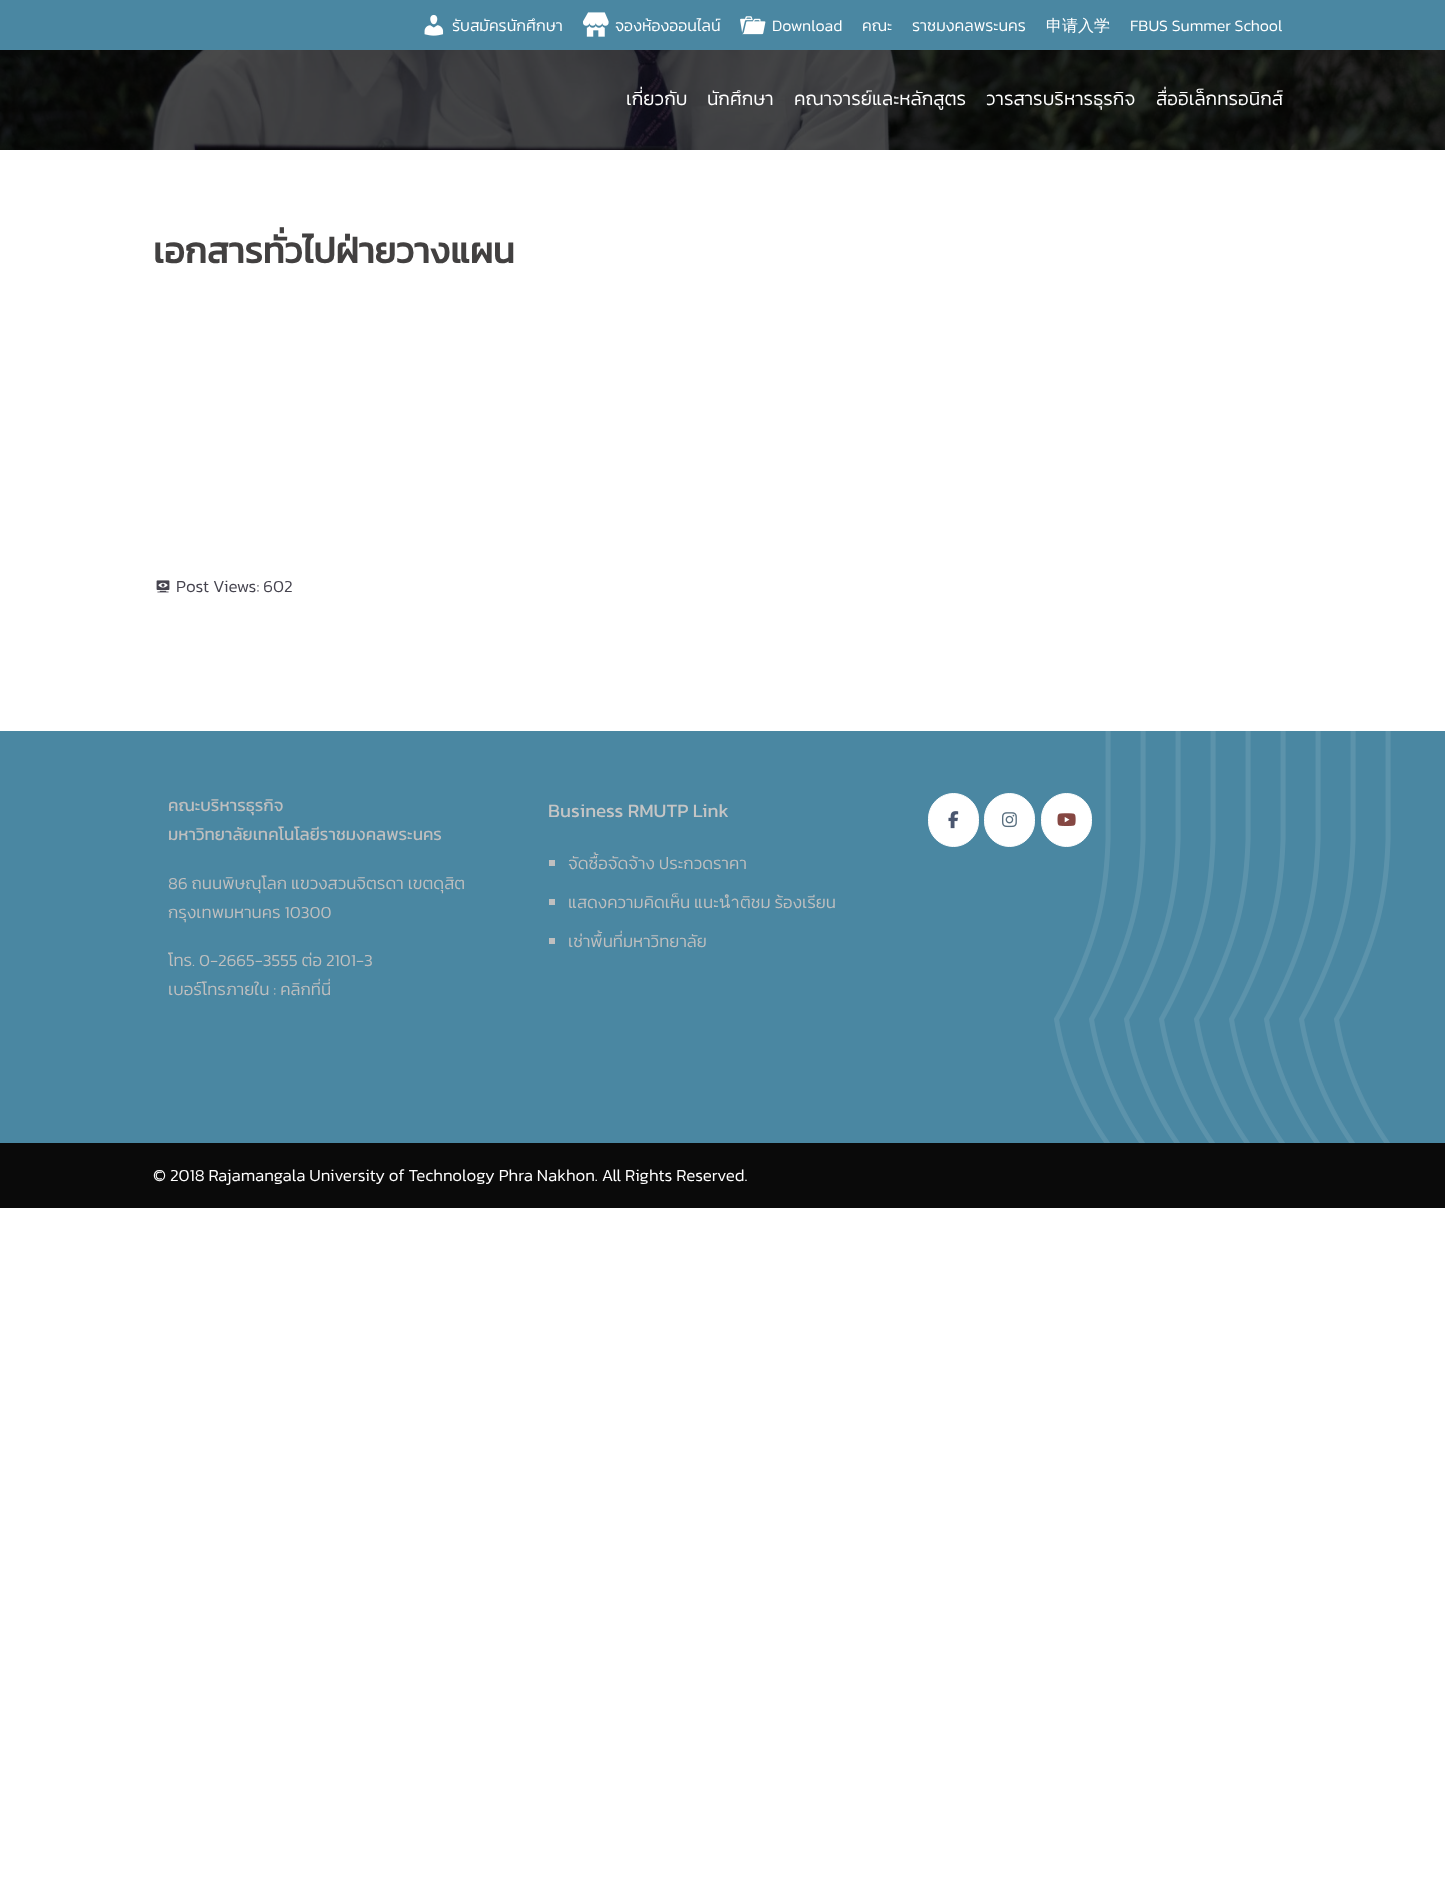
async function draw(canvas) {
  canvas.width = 1445;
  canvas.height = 1894;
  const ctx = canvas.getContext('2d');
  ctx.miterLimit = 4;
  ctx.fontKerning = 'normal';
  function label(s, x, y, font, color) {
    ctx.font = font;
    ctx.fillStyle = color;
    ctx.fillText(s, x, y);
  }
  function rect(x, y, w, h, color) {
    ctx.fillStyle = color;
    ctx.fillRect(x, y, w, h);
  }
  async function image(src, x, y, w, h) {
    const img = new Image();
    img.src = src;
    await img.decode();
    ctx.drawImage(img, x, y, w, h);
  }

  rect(0, 0, 1445, 1894, '#fff');
  rect(0, 0, 1445, 50, '#4a87a2');
  await image('assets/img1.png', 424, 14, 20, 22);
  label('รับสมัครนักศึกษา', 452, 31, '300 16px Kanit', '#fff');
  await image('assets/img2.png', 583, 12, 26, 25);
  label('จองห้องออนไลน์', 615, 31, '300 16px Kanit', '#fff');
  await image('assets/img3.png', 740, 16, 26, 19);
  label('Download', 772, 31, '300 16px Kanit', '#fff');
  label('คณะ', 862, 31, '300 16px Kanit', '#fff');
  label('ราชมงคลพระนคร', 912, 31, '300 16px Kanit', '#fff');
  label('申请入学', 1046, 31, '500 16px WenQuanYi Zen Hei', '#fff');
  label('FBUS Summer School', 1130, 31, '300 16px Kanit', '#fff');
  await image('assets/img4.png', 0, 50, 1445, 100);
  label('เกี่ยวกับ', 626, 105, '300 19px Kanit', '#fff');
  label('นักศึกษา', 707, 105, '300 19px Kanit', '#fff');
  label('คณาจารย์และหลักสูตร', 794, 105, '300 19px Kanit', '#fff');
  label('วารสารบริหารธุรกิจ', 986, 105, '300 19px Kanit', '#fff');
  label('สื่ออิเล็กทรอนิกส์', 1156, 105, '300 19px Kanit', '#fff');
  label('เอกสารทั่วไปฝ่ายวางแผน', 153, 263, 'bold 36px Kanit', '#424040');
  await image('assets/img5.png', 156, 580, 14, 13);
  label('Post Views: 602', 176, 592, '300 17px Kanit', '#46444f');
  rect(0, 731, 1445, 412, '#4a87a2');
  await image('assets/img6.png', 1054, 731, 337, 412);
  label('คณะบริหารธุรกิจ', 168, 811, '17px Kanit', '#bfbfbf');
  label('มหาวิทยาลัยเทคโนโลยีราชมงคลพระนคร', 168, 840, '17px Kanit', '#bfbfbf');
  label('86 ถนนพิษณุโลก แขวงสวนจิตรดา เขตดุสิต', 168, 889, '300 17px Kanit', '#bfbfbf');
  label('กรุงเทพมหานคร 10300', 168, 918, '300 17px Kanit', '#bfbfbf');
  label('โทร. 0-2665-3555 ต่อ 2101-3', 168, 966, '300 17px Kanit', '#bfbfbf');
  label('เบอร์โทรภายใน : คลิกที่นี่', 168, 995, '300 17px Kanit', '#bfbfbf');
  label('Business RMUTP Link', 548, 817, '19px Kanit', '#c5c5c5');
  rect(549, 860, 6, 6, '#bfbfbf');
  label('จัดซื้อจัดจ้าง ประกวดราคา', 568, 869, '300 17px Kanit', '#bfbfbf');
  rect(549, 899, 6, 6, '#bfbfbf');
  label('แสดงความคิดเห็น แนะนำติชม ร้องเรียน', 568, 908, '300 17px Kanit', '#bfbfbf');
  rect(549, 938, 6, 6, '#bfbfbf');
  label('เช่าพื้นที่มหาวิทยาลัย', 568, 947, '300 17px Kanit', '#bfbfbf');
  ctx.fillStyle = '#fff';
  ctx.beginPath();
  ctx.roundRect(928.5, 793.5, 50, 53, 25);
  ctx.fill();
  ctx.strokeStyle = '#fff';
  ctx.stroke();
  await image('assets/img7.png', 948, 811, 11, 18);
  ctx.beginPath();
  ctx.roundRect(984.5, 793.5, 50, 53, 25);
  ctx.fill();
  ctx.stroke();
  await image('assets/img8.png', 1002, 812, 15, 16);
  ctx.beginPath();
  ctx.roundRect(1041.5, 793.5, 50, 53, 25);
  ctx.fill();
  ctx.stroke();
  await image('assets/img9.png', 1057, 813, 19, 13);
  rect(0, 1143, 1445, 65, '#0a0a0a');
  label('© 2018 Rajamangala University of Technology Phra Nakhon. All Rights Reserved.', 153, 1181, '300 17px Kanit', '#fff');
}

draw(document.querySelector('canvas'));
